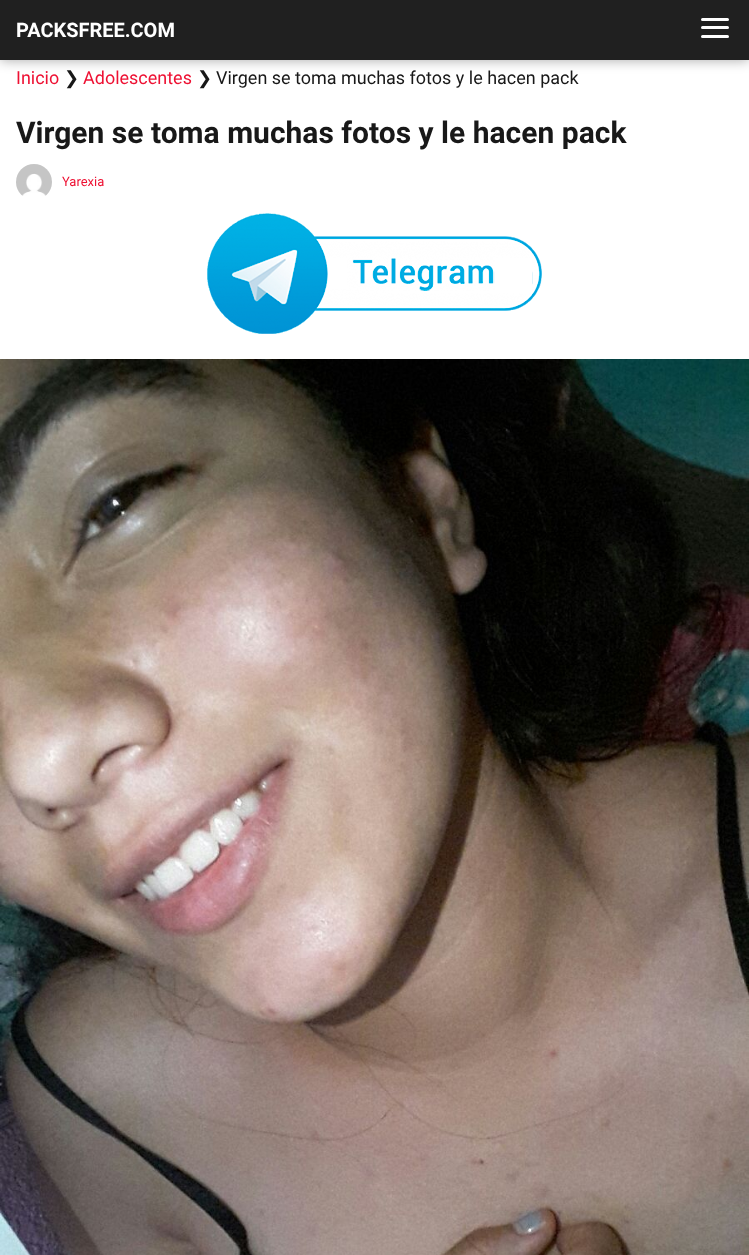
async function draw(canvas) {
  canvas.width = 749;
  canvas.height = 1255;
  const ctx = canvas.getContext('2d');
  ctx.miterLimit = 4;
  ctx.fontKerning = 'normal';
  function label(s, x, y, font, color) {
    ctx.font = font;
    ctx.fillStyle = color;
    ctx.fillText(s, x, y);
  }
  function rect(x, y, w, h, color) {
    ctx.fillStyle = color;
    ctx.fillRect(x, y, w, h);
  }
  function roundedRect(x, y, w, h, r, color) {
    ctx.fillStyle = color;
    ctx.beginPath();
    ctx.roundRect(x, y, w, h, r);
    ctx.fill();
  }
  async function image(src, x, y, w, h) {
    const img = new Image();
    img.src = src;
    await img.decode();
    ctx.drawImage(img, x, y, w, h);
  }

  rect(0, 0, 749, 1255, '#fff');
  ctx.fillStyle = '#0000004d';
  ctx.filter = 'blur(6px)';
  ctx.beginPath();
  ctx.rect(0, 1, 749, 60);
  ctx.fill();
  ctx.filter = 'none';
  rect(0, 0, 749, 60, '#202020');
  label('PACKSFREE.COM', 16, 37, 'bold 20px Roboto', '#fff');
  roundedRect(701, 18, 28, 3, 1.5, '#fff');
  roundedRect(701, 26, 28, 3, 1.5, '#fff');
  roundedRect(701, 35, 28, 3, 1.5, '#fff');
  label('Inicio', 16, 84, '18px Roboto', '#e13');
  label('❯', 64, 84, '18px DejaVu Sans', '#181818');
  label('Adolescentes', 83, 84, '18px Roboto', '#e13');
  label('❯', 197, 84, '18px DejaVu Sans', '#181818');
  label('Virgen se toma muchas fotos y le hacen pack', 216, 84, '18px Roboto', '#181818');
  label('Virgen se toma muchas fotos y le hacen pack', 16, 143, 'bold 30px Roboto', '#181818');
  await image('assets/img1.png', 16, 164, 36, 32);
  label('Yarexia', 62, 186, '13px Roboto', '#e13');
  await image('assets/img2.png', 207, 213, 335, 121);
  await image('assets/img3.png', 0, 359, 749, 896);
}

draw(document.querySelector('canvas'));
